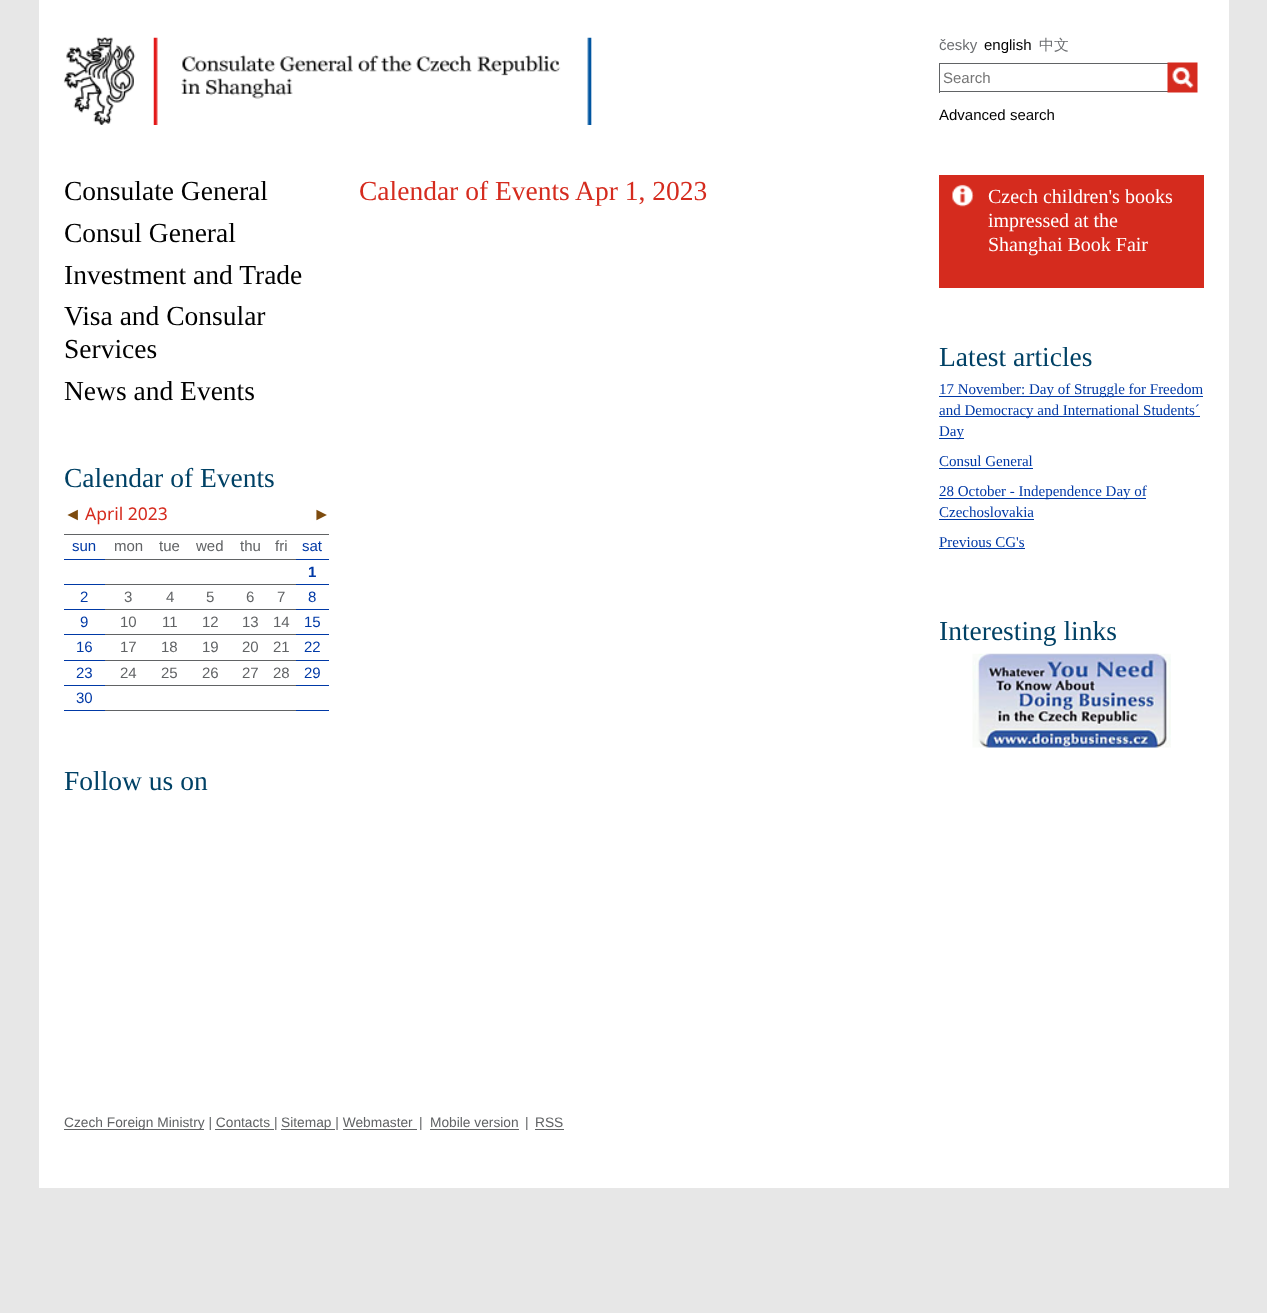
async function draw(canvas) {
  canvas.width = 1267;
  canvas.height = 1313;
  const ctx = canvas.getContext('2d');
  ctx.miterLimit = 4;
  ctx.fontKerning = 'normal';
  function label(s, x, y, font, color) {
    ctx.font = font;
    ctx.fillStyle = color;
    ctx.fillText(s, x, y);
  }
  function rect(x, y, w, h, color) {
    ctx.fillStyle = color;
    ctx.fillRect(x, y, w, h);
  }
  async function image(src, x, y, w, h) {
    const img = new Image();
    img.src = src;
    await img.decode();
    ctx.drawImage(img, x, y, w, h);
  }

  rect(0, 0, 1267, 1313, '#e7e7e7');
  rect(39, 0, 1190, 1188, '#fff');
  await image('assets/img1.png', 63, 37, 529, 88);
  label('česky', 939, 50, '15px Liberation Sans', '#6d6f72');
  label('english', 984, 50, '15px Liberation Sans', '#000');
  label('中文', 1039, 50, '500 15px WenQuanYi Zen Hei', '#6d6f72');
  rect(939, 63, 229, 1, '#616365');
  rect(939, 91, 229, 1, '#616365');
  rect(939, 63, 1, 30, '#616365');
  label('Search', 943, 83, '15px Liberation Sans', '#757575');
  await image('assets/img2.png', 1167, 62, 31, 31);
  label('Advanced search', 939, 120, '15px Liberation Sans', '#000');
  label('Consulate General', 64, 200, '27.5px Liberation Serif', '#000');
  label('Consul General', 64, 242, '27.5px Liberation Serif', '#000');
  label('Investment and Trade', 64, 284, '27.5px Liberation Serif', '#000');
  label('Visa and Consular', 64, 325, '27.5px Liberation Serif', '#000');
  label('Services', 64, 358, '27.5px Liberation Serif', '#000');
  label('News and Events', 64, 400, '27.5px Liberation Serif', '#000');
  label('Calendar of Events Apr 1, 2023', 359, 200, '27.5px Liberation Serif', '#d52b1e');
  label('Calendar of Events', 64, 487, '27.5px Liberation Serif', '#004165');
  rect(64, 534, 265, 1, '#616365');
  label('◄', 64, 520, '17.5px Liberation Serif', '#7d4b0e');
  label('April 2023', 85, 520, '17.5px Noto Sans', '#d52b1e');
  label('►', 313, 520, '17.5px Liberation Serif', '#7d4b0e');
  rect(295, 559, 34, 1, '#0039a6');
  rect(104, 559, 192, 1, '#616365');
  rect(64, 559, 41, 1, '#0039a6');
  label('sun', 72, 551, '15px Liberation Sans', '#0039a6');
  label('mon', 114, 551, '15px Liberation Sans', '#616365');
  label('tue', 159, 551, '15px Liberation Sans', '#616365');
  label('wed', 196, 551, '15px Liberation Sans', '#616365');
  label('thu', 240, 551, '15px Liberation Sans', '#616365');
  label('fri', 275, 551, '15px Liberation Sans', '#616365');
  label('sat', 302, 551, '15px Liberation Sans', '#0039a6');
  rect(295, 584, 34, 1, '#0039a6');
  label('1', 308, 577, 'bold 15px Liberation Sans', '#0039a6');
  rect(104, 584, 192, 1, '#616365');
  rect(64, 584, 41, 1, '#0039a6');
  rect(295, 609, 34, 1, '#0039a6');
  rect(104, 609, 192, 1, '#616365');
  rect(64, 609, 41, 1, '#0039a6');
  label('2', 80, 602, '15px Liberation Sans', '#0039a6');
  label('3', 124, 602, '15px Liberation Sans', '#616365');
  label('4', 166, 602, '15px Liberation Sans', '#616365');
  label('5', 206, 602, '15px Liberation Sans', '#616365');
  label('6', 246, 602, '15px Liberation Sans', '#616365');
  label('7', 277, 602, '15px Liberation Sans', '#616365');
  label('8', 308, 602, '15px Liberation Sans', '#0039a6');
  rect(295, 634, 34, 1, '#0039a6');
  rect(104, 634, 192, 1, '#616365');
  rect(64, 634, 41, 1, '#0039a6');
  label('9', 80, 627, '15px Liberation Sans', '#0039a6');
  label('10', 120, 627, '15px Liberation Sans', '#616365');
  label('11', 162, 627, '15px Liberation Sans', '#616365');
  label('12', 202, 627, '15px Liberation Sans', '#616365');
  label('13', 242, 627, '15px Liberation Sans', '#616365');
  label('14', 273, 627, '15px Liberation Sans', '#616365');
  label('15', 304, 627, '15px Liberation Sans', '#0039a6');
  rect(295, 660, 34, 1, '#0039a6');
  rect(104, 660, 192, 1, '#616365');
  rect(64, 660, 41, 1, '#0039a6');
  label('16', 76, 652, '15px Liberation Sans', '#0039a6');
  label('17', 120, 652, '15px Liberation Sans', '#616365');
  label('18', 161, 652, '15px Liberation Sans', '#616365');
  label('19', 202, 652, '15px Liberation Sans', '#616365');
  label('20', 242, 652, '15px Liberation Sans', '#616365');
  label('21', 273, 652, '15px Liberation Sans', '#616365');
  label('22', 304, 652, '15px Liberation Sans', '#0039a6');
  rect(295, 685, 34, 1, '#0039a6');
  rect(104, 685, 192, 1, '#616365');
  rect(64, 685, 41, 1, '#0039a6');
  label('23', 76, 678, '15px Liberation Sans', '#0039a6');
  label('24', 120, 678, '15px Liberation Sans', '#616365');
  label('25', 161, 678, '15px Liberation Sans', '#616365');
  label('26', 202, 678, '15px Liberation Sans', '#616365');
  label('27', 242, 678, '15px Liberation Sans', '#616365');
  label('28', 273, 678, '15px Liberation Sans', '#616365');
  label('29', 304, 678, '15px Liberation Sans', '#0039a6');
  rect(295, 710, 34, 1, '#0039a6');
  rect(104, 710, 192, 1, '#616365');
  rect(64, 710, 41, 1, '#0039a6');
  label('30', 76, 703, '15px Liberation Sans', '#0039a6');
  label('Follow us on', 64, 790, '27.5px Liberation Serif', '#004165');
  rect(939, 175, 265, 113, '#d52b1e');
  await image('assets/img3.png', 952, 184, 22, 23);
  label('Czech children\'s books', 988, 203, '20px Liberation Serif', '#fff');
  label('impressed at the', 988, 227, '20px Liberation Serif', '#fff');
  label('Shanghai Book Fair', 988, 251, '20px Liberation Serif', '#fff');
  label('Latest articles', 939, 366, '27.5px Liberation Serif', '#004165');
  rect(939, 396, 264, 1, '#0039a6');
  label('17 November: Day of Struggle for Freedom', 939, 394, '15px Liberation Serif', '#0039a6');
  rect(939, 416, 261, 1, '#0039a6');
  label('and Democracy and International Students´', 939, 415, '15px Liberation Serif', '#0039a6');
  rect(939, 438, 25, 1, '#0039a6');
  label('Day', 939, 436, '15px Liberation Serif', '#0039a6');
  label('Consul General', 939, 466, '15px Liberation Serif', '#0039a6');
  rect(939, 468, 94, 1, '#0039a6');
  rect(939, 498, 207, 1, '#0039a6');
  label('28 October - Independence Day of', 939, 496, '15px Liberation Serif', '#0039a6');
  label('Czechoslovakia', 939, 517, '15px Liberation Serif', '#0039a6');
  rect(939, 519, 95, 1, '#0039a6');
  label('Previous CG\'s', 939, 547, '15px Liberation Serif', '#0039a6');
  rect(939, 548, 86, 1, '#0039a6');
  label('Interesting links', 939, 640, '27.5px Liberation Serif', '#004165');
  await image('assets/img4.png', 972, 653, 199, 95);
  rect(64, 1129, 140, 1, '#616365');
  label('Czech Foreign Ministry | Contacts |', 64, 1127, '13.75px Liberation Sans', '#616365');
  rect(281, 1129, 54, 1, '#616365');
  label('Sitemap | Webmaster', 281, 1127, '13.75px Liberation Sans', '#616365');
  label('|', 419, 1127, '13.75px Liberation Sans', '#616365');
  label('Mobile version', 430, 1127, '13.75px Liberation Sans', '#616365');
  rect(430, 1129, 89, 1, '#616365');
  label('|', 525, 1127, '13.75px Liberation Sans', '#616365');
  label('RSS', 535, 1127, '13.75px Liberation Sans', '#616365');
  rect(535, 1129, 29, 1, '#616365');
  rect(215, 1129, 59, 1, '#616365');
  rect(343, 1129, 74, 1, '#616365');
}

draw(document.querySelector('canvas'));
